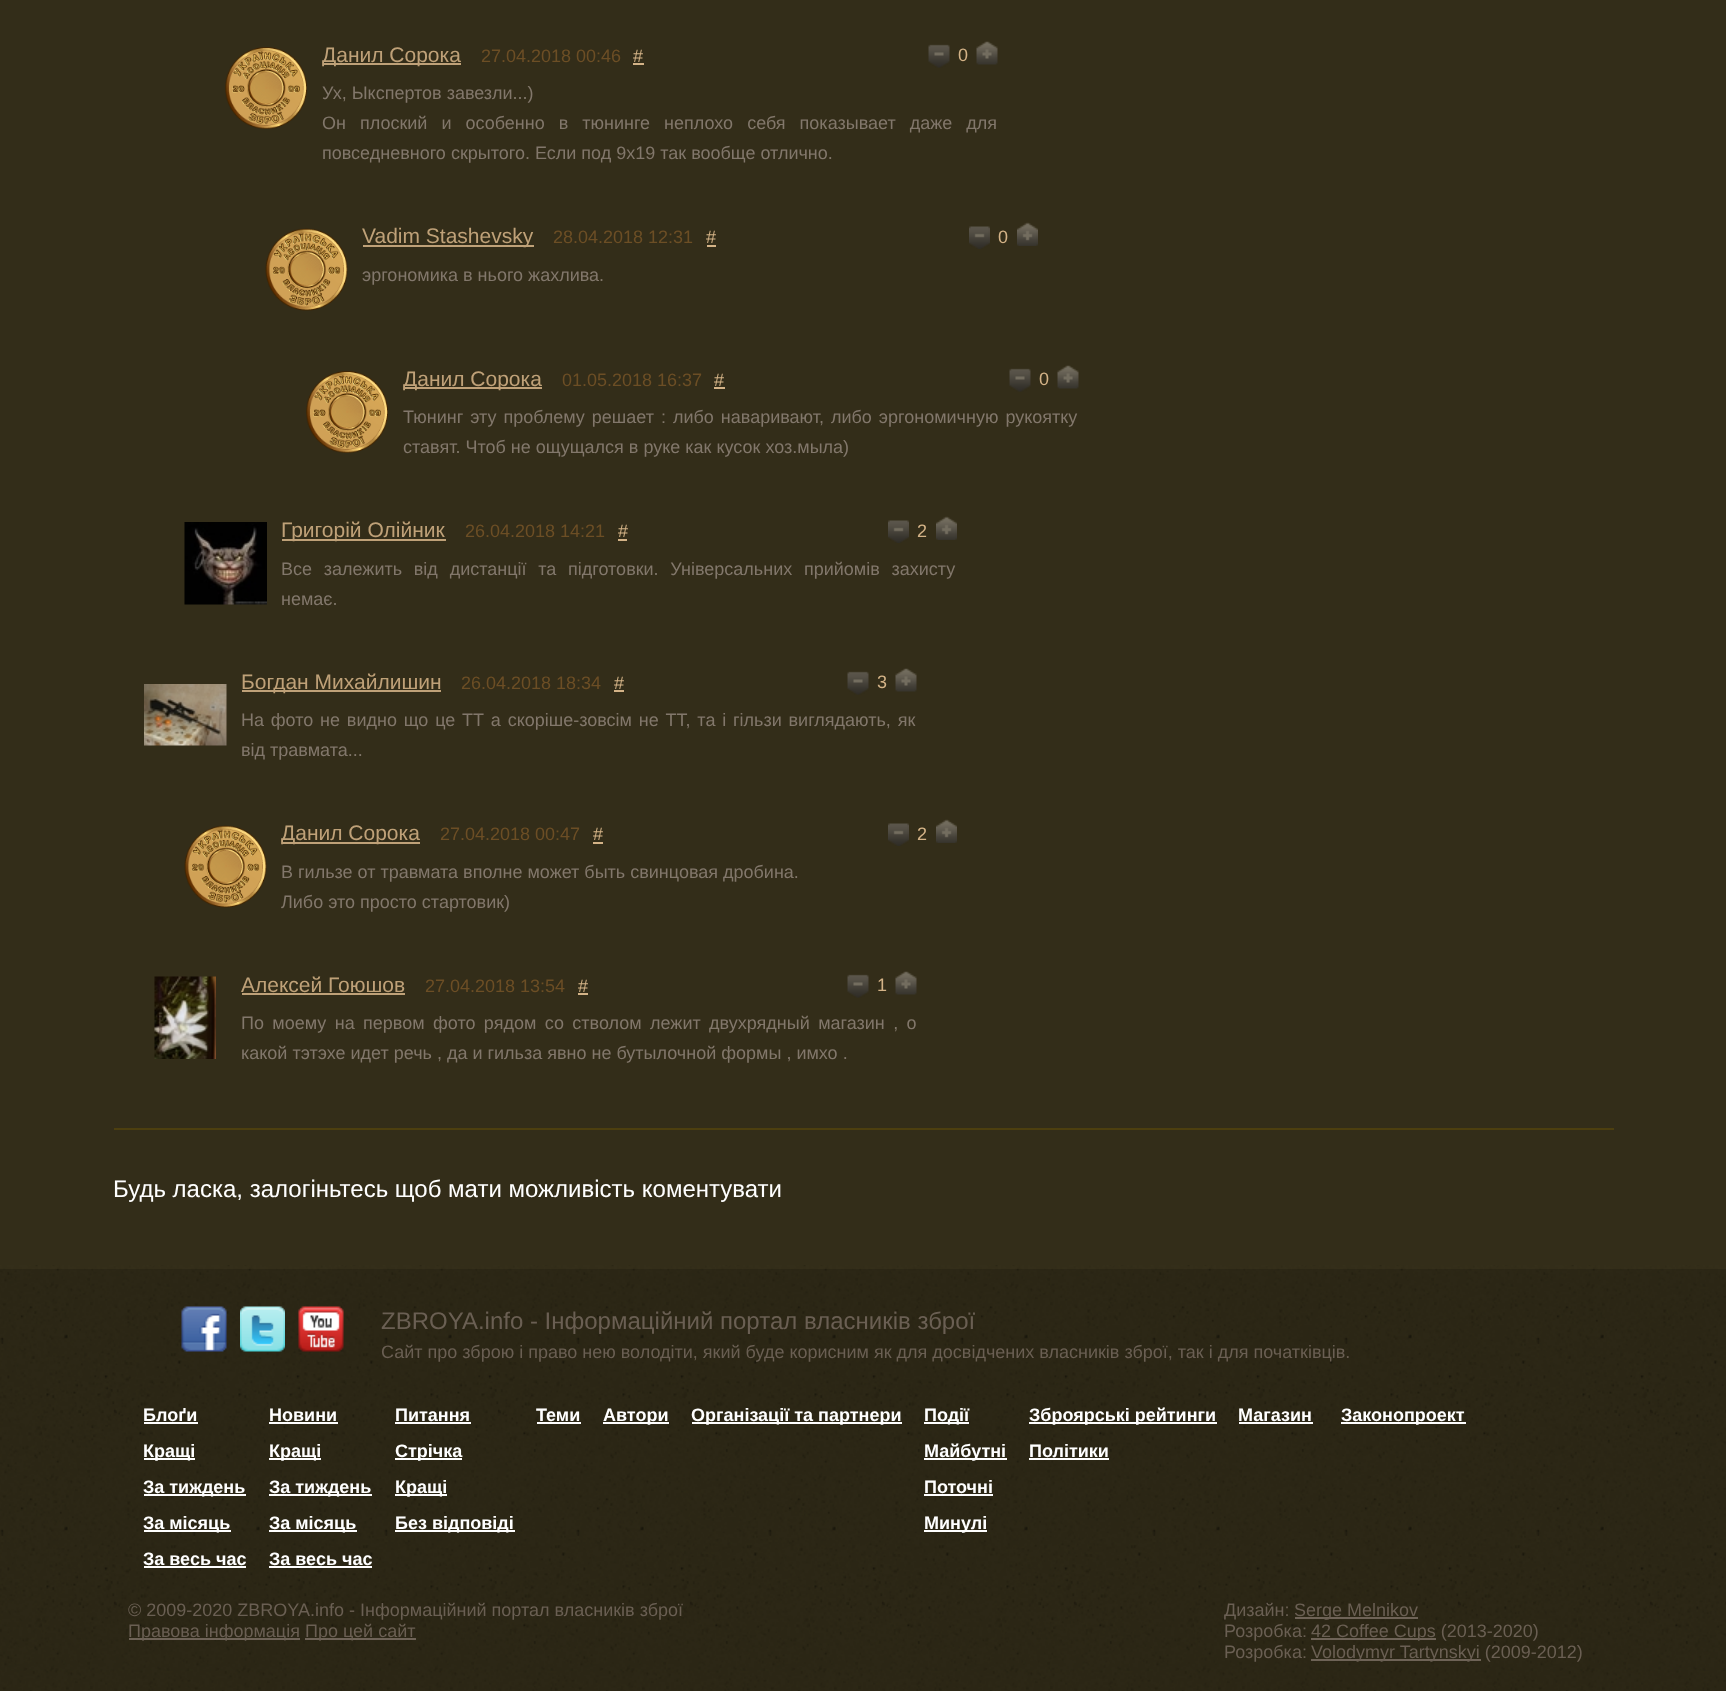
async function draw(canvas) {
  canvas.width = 1726;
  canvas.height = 1691;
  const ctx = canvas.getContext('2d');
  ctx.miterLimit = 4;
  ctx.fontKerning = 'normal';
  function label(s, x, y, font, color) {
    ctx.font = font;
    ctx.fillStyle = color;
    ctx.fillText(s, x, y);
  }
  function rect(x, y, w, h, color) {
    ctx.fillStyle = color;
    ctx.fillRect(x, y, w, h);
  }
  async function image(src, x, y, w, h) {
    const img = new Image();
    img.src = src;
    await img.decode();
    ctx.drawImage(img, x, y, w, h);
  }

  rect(0, 0, 1726, 1691, '#fff');
  await image('assets/img1.png', 0, 1265, 1726, 426);
  rect(0, 0, 1726, 1265, '#332d19');
  await image('assets/img2.png', 225, 47, 82, 82);
  rect(323, 63, 138, 2, '#bfa178');
  label('Данил Сорока', 322, 62, '21px Liberation Sans', '#bfa178');
  label('27.04.2018 00:46', 481, 62, '18px Liberation Sans', '#6c4e25');
  label('#', 633, 62, '18px Liberation Sans', '#d4b387');
  rect(633, 63, 11, 2, '#d4b387');
  await image('assets/img3.png', 928, 44, 22, 24);
  label('0', 958, 61, '18px Liberation Sans', '#d4b387');
  await image('assets/img4.png', 976, 41, 22, 24);
  label('Ух, Ыкспертов завезли...)', 322, 99, '18px Liberation Sans', '#82776b');
  ctx.wordSpacing = '9px';
  label('Он плоский и особенно в тюнинге неплохо себя показывает даже для', 322, 129, '18px Liberation Sans', '#82776b');
  ctx.wordSpacing = '0px';
  label('повседневного скрытого. Если под 9х19 так вообще отлично.', 322, 159, '18px Liberation Sans', '#82776b');
  await image('assets/img5.png', 265, 228, 83, 83);
  rect(363, 245, 171, 2, '#bfa178');
  label('Vadim Stashevsky', 362, 243, '21px Liberation Sans', '#bfa178');
  label('28.04.2018 12:31', 553, 243, '18px Liberation Sans', '#6c4e25');
  label('#', 706, 243, '18px Liberation Sans', '#d4b387');
  rect(707, 245, 9, 2, '#d4b387');
  await image('assets/img6.png', 969, 226, 21, 23);
  label('0', 998, 243, '18px Liberation Sans', '#d4b387');
  await image('assets/img7.png', 1017, 222, 21, 24);
  label('эргономика в нього жахлива.', 362, 281, '18px Liberation Sans', '#82776b');
  await image('assets/img2.png', 306, 371, 82, 82);
  rect(404, 387, 138, 2, '#bfa178');
  label('Данил Сорока', 403, 386, '21px Liberation Sans', '#bfa178');
  label('01.05.2018 16:37', 562, 386, '18px Liberation Sans', '#6c4e25');
  label('#', 714, 386, '18px Liberation Sans', '#d4b387');
  rect(714, 387, 11, 2, '#d4b387');
  await image('assets/img3.png', 1009, 368, 22, 24);
  label('0', 1039, 385, '18px Liberation Sans', '#d4b387');
  await image('assets/img8.png', 1057, 365, 22, 24);
  ctx.wordSpacing = '2px';
  label('Тюнинг эту проблему решает : либо наваривают, либо эргономичную рукоятку', 403, 423, '18px Liberation Sans', '#82776b');
  ctx.wordSpacing = '0px';
  label('ставят. Чтоб не ощущался в руке как кусок хоз.мыла)', 403, 453, '18px Liberation Sans', '#82776b');
  await image('assets/img9.png', 184, 522, 83, 83);
  rect(282, 539, 164, 2, '#bfa178');
  label('Григорій Олійник', 281, 537, '21px Liberation Sans', '#bfa178');
  label('26.04.2018 14:21', 465, 537, '18px Liberation Sans', '#6c4e25');
  label('#', 618, 537, '18px Liberation Sans', '#d4b387');
  rect(618, 539, 9, 2, '#d4b387');
  await image('assets/img6.png', 888, 520, 21, 23);
  label('2', 917, 537, '18px Liberation Sans', '#d4b387');
  await image('assets/img7.png', 936, 516, 21, 24);
  ctx.wordSpacing = '6.75px';
  label('Все залежить від дистанції та підготовки. Універсальних прийомів захисту', 281, 575, '18px Liberation Sans', '#82776b');
  ctx.wordSpacing = '0px';
  label('немає.', 281, 605, '18px Liberation Sans', '#82776b');
  await image('assets/img10.png', 144, 684, 83, 62);
  rect(242, 690, 199, 2, '#bfa178');
  label('Богдан Михайлишин', 241, 689, '21px Liberation Sans', '#bfa178');
  label('26.04.2018 18:34', 461, 689, '18px Liberation Sans', '#6c4e25');
  label('#', 614, 689, '18px Liberation Sans', '#d4b387');
  rect(614, 690, 10, 2, '#d4b387');
  await image('assets/img3.png', 847, 671, 22, 24);
  label('3', 877, 688, '18px Liberation Sans', '#d4b387');
  await image('assets/img4.png', 895, 668, 22, 24);
  ctx.wordSpacing = '1.8px';
  label('На фото не видно що це ТТ а скоріше-зовсім не ТТ, та і гільзи виглядають, як', 241, 726, '18px Liberation Sans', '#82776b');
  ctx.wordSpacing = '0px';
  label('від травмата...', 241, 756, '18px Liberation Sans', '#82776b');
  await image('assets/img11.png', 184, 825, 83, 83);
  rect(282, 842, 138, 2, '#bfa178');
  label('Данил Сорока', 281, 840, '21px Liberation Sans', '#bfa178');
  label('27.04.2018 00:47', 440, 840, '18px Liberation Sans', '#6c4e25');
  label('#', 593, 840, '18px Liberation Sans', '#d4b387');
  rect(593, 842, 10, 2, '#d4b387');
  await image('assets/img6.png', 888, 823, 21, 23);
  label('2', 917, 840, '18px Liberation Sans', '#d4b387');
  await image('assets/img7.png', 936, 819, 21, 24);
  label('В гильзе от травмата вполне может быть свинцовая дробина.', 281, 878, '18px Liberation Sans', '#82776b');
  label('Либо это просто стартовик)', 281, 908, '18px Liberation Sans', '#82776b');
  await image('assets/img12.png', 154, 976, 62, 83);
  label('Алексей Гоюшов', 241, 992, '21px Liberation Sans', '#bfa178');
  rect(242, 993, 163, 2, '#bfa178');
  label('27.04.2018 13:54', 425, 992, '18px Liberation Sans', '#6c4e25');
  label('#', 578, 992, '18px Liberation Sans', '#d4b387');
  rect(578, 993, 10, 2, '#d4b387');
  await image('assets/img3.png', 847, 974, 22, 24);
  label('1', 877, 991, '18px Liberation Sans', '#d4b387');
  await image('assets/img4.png', 895, 971, 22, 24);
  ctx.wordSpacing = '3.4px';
  label('По моему на первом фото рядом со стволом лежит двухрядный магазин , о', 241, 1029, '18px Liberation Sans', '#82776b');
  ctx.wordSpacing = '0px';
  label('какой тэтэхе идет речь , да и гильза явно не бутылочной формы , имхо .', 241, 1059, '18px Liberation Sans', '#82776b');
  rect(114, 1128, 1500, 2, '#4d3f0f');
  label('Будь ласка, залогіньтесь щоб мати можливість коментувати', 113, 1197, '24px Liberation Sans', '#fff');
  rect(0, 1269, 1726, 422, '#00000026');
  await image('assets/img13.png', 181, 1306, 46, 46);
  await image('assets/img14.png', 240, 1306, 45, 46);
  await image('assets/img15.png', 298, 1306, 46, 46);
  label('ZBROYA.info - Інформаційний портал власників зброї', 381, 1329, '24px Liberation Sans', '#6a5f53');
  label('Сайт про зброю і право нею володіти, який буде корисним як для досвідчених власників зброї, так і для початківців.', 381, 1358, '18px Liberation Sans', '#6a5f53');
  label('Блоґи', 143, 1421, 'bold 18px Liberation Sans', '#fff');
  rect(144, 1422, 54, 2, '#fff');
  rect(144, 1458, 51, 2, '#fff');
  label('Кращі', 143, 1457, 'bold 18px Liberation Sans', '#fff');
  rect(144, 1494, 102, 2, '#fff');
  label('За тиждень', 143, 1493, 'bold 18px Liberation Sans', '#fff');
  rect(144, 1530, 87, 2, '#fff');
  label('За місяць', 143, 1529, 'bold 18px Liberation Sans', '#fff');
  label('За весь час', 143, 1565, 'bold 18px Liberation Sans', '#fff');
  rect(144, 1566, 102, 2, '#fff');
  label('Новини', 269, 1421, 'bold 18px Liberation Sans', '#fff');
  rect(269, 1422, 69, 2, '#fff');
  rect(269, 1458, 52, 2, '#fff');
  label('Кращі', 269, 1457, 'bold 18px Liberation Sans', '#fff');
  rect(269, 1494, 103, 2, '#fff');
  label('За тиждень', 269, 1493, 'bold 18px Liberation Sans', '#fff');
  rect(269, 1530, 88, 2, '#fff');
  label('За місяць', 269, 1529, 'bold 18px Liberation Sans', '#fff');
  label('За весь час', 269, 1565, 'bold 18px Liberation Sans', '#fff');
  rect(269, 1566, 103, 2, '#fff');
  label('Питання', 395, 1421, 'bold 18px Liberation Sans', '#fff');
  rect(395, 1422, 76, 2, '#fff');
  rect(395, 1458, 67, 2, '#fff');
  label('Стрічка', 395, 1457, 'bold 18px Liberation Sans', '#fff');
  rect(395, 1494, 52, 2, '#fff');
  label('Кращі', 395, 1493, 'bold 18px Liberation Sans', '#fff');
  rect(395, 1530, 120, 2, '#fff');
  label('Без відповіді', 395, 1529, 'bold 18px Liberation Sans', '#fff');
  label('Теми', 536, 1421, 'bold 18px Liberation Sans', '#fff');
  rect(537, 1422, 44, 2, '#fff');
  rect(603, 1422, 66, 2, '#fff');
  label('Автори', 603, 1421, 'bold 18px Liberation Sans', '#fff');
  rect(692, 1422, 210, 2, '#fff');
  label('Організації та партнери', 691, 1421, 'bold 18px Liberation Sans', '#fff');
  rect(924, 1422, 45, 2, '#fff');
  label('Події', 924, 1421, 'bold 18px Liberation Sans', '#fff');
  rect(924, 1458, 83, 2, '#fff');
  label('Майбутні', 924, 1457, 'bold 18px Liberation Sans', '#fff');
  label('Поточні', 924, 1493, 'bold 18px Liberation Sans', '#fff');
  rect(924, 1494, 69, 2, '#fff');
  rect(924, 1530, 63, 2, '#fff');
  label('Минулі', 924, 1529, 'bold 18px Liberation Sans', '#fff');
  rect(1029, 1422, 188, 2, '#fff');
  label('Зброярські рейтинги', 1029, 1421, 'bold 18px Liberation Sans', '#fff');
  label('Політики', 1029, 1457, 'bold 18px Liberation Sans', '#fff');
  rect(1029, 1458, 80, 2, '#fff');
  label('Магазин', 1238, 1421, 'bold 18px Liberation Sans', '#fff');
  rect(1239, 1422, 74, 2, '#fff');
  rect(1341, 1422, 125, 2, '#fff');
  label('Законопроект', 1341, 1421, 'bold 18px Liberation Sans', '#fff');
  label('© 2009-2020 ZBROYA.info - Інформаційний портал власників зброї', 128, 1616, '18px Liberation Sans', '#6a5f53');
  rect(129, 1638, 171, 2, '#6e6357');
  label('Правова інформація', 128, 1637, '18px Liberation Sans', '#6a5f53');
  rect(305, 1638, 111, 2, '#6e6357');
  label('Про цей сайт', 305, 1637, '18px Liberation Sans', '#6a5f53');
  label('Дизайн:', 1224, 1616, '18px Liberation Sans', '#6a5f53');
  rect(1295, 1617, 123, 2, '#6e6357');
  label('Serge Melnikov', 1294, 1616, '18px Liberation Sans', '#6a5f53');
  label('Розробка:', 1224, 1637, '18px Liberation Sans', '#6a5f53');
  rect(1311, 1638, 125, 2, '#6e6357');
  label('42 Coffee Cups (2013-2020)', 1311, 1637, '18px Liberation Sans', '#6a5f53');
  label('Розробка:', 1224, 1658, '18px Liberation Sans', '#6a5f53');
  rect(1311, 1659, 170, 2, '#6e6357');
  label('Volodymyr Tartynskyi (2009-2012)', 1311, 1658, '18px Liberation Sans', '#6a5f53');
}

draw(document.querySelector('canvas'));
